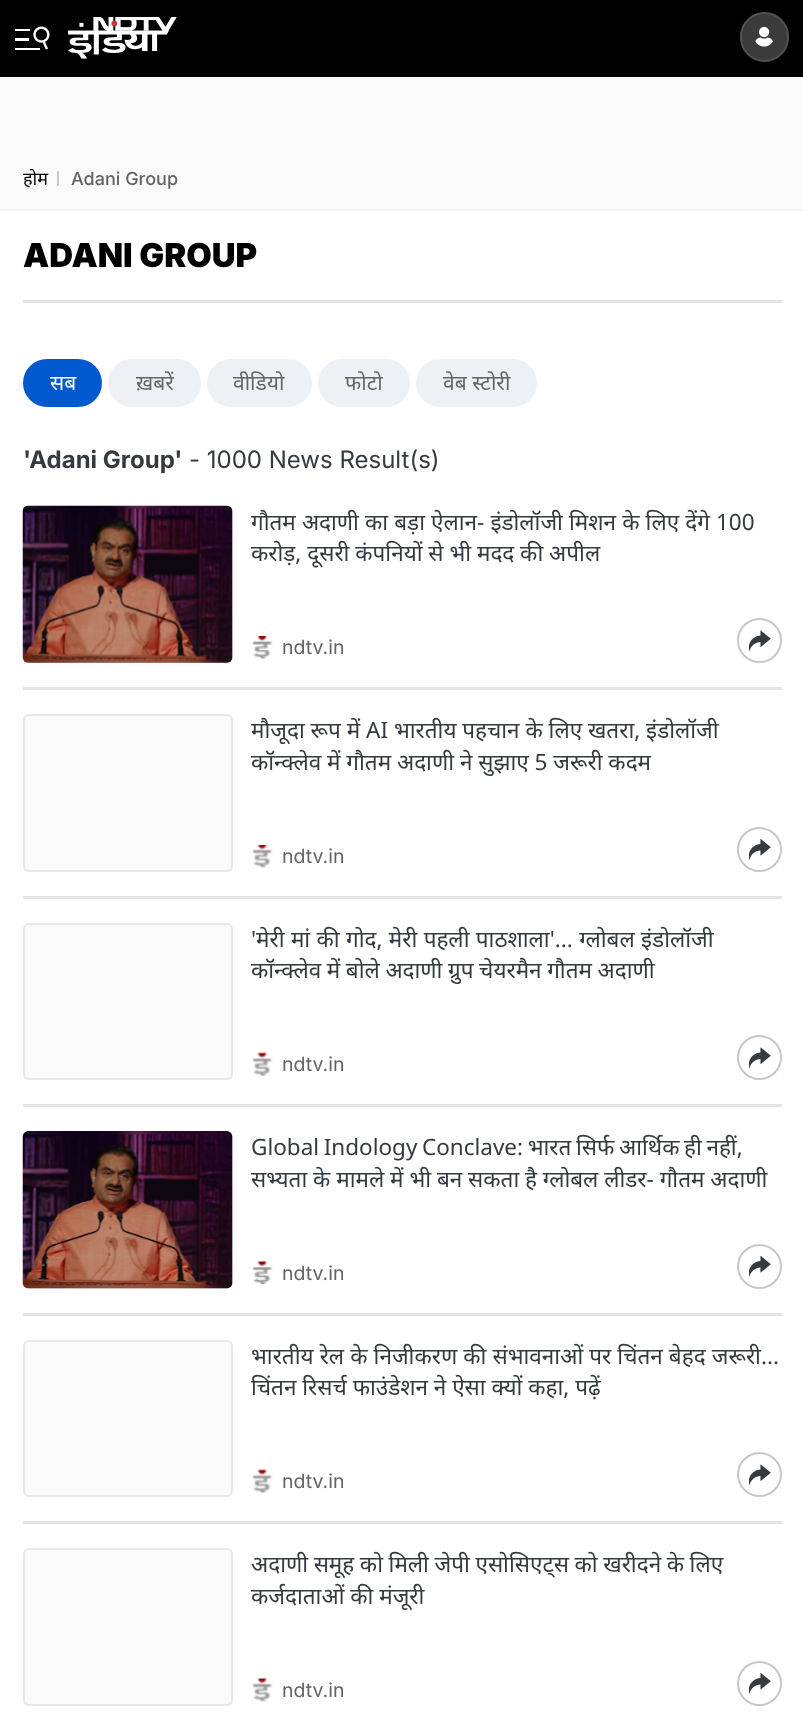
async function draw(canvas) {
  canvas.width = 803;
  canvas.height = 1720;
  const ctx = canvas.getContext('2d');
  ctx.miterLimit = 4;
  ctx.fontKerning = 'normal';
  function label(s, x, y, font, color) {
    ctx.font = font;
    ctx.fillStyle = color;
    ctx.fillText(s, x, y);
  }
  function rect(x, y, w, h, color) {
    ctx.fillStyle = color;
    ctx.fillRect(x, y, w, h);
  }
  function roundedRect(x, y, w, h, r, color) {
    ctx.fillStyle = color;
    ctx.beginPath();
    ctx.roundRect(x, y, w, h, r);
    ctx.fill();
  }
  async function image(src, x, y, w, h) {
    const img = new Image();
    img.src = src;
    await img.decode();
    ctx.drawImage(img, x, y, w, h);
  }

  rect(0, 0, 803, 1720, '#fafafa');
  rect(0, 0, 803, 77, '#000');
  await image('assets/img1.png', 15, 26, 35, 24);
  await image('assets/img2.png', 68, 17, 109, 42);
  ctx.fillStyle = '#3b3b3b';
  ctx.beginPath();
  ctx.roundRect(741, 13, 47, 48, 23.5);
  ctx.fill();
  ctx.strokeStyle = '#525252';
  ctx.lineWidth = 2;
  ctx.stroke();
  await image('assets/img3.png', 755, 26, 18, 21);
  label('होम', 23, 185, '18px Noto Sans', '#000');
  rect(57, 171, 2, 15, '#c8c8c8');
  label('Adani Group', 71, 185, '500 18px Inter', '#646464');
  rect(0, 211, 803, 1509, '#fff');
  rect(0, 209, 803, 2, '#f2f2f2');
  rect(23, 300, 759, 3, '#e5e5e5');
  label('ADANI GROUP', 23, 267, '900 33px Inter', '#000');
  roundedRect(23, 359, 79, 48, 24, '#0059ce');
  label('सब', 50, 390, '21px Noto Sans', '#fff');
  roundedRect(108, 359, 93, 48, 24, '#edf1f6');
  label('ख़बरें', 136, 390, '21px Noto Sans', '#646464');
  roundedRect(207, 359, 105, 48, 24, '#edf1f6');
  label('वीडियो', 233, 390, '21px Noto Sans', '#646464');
  roundedRect(318, 359, 92, 48, 24, '#edf1f6');
  label('फोटो', 345, 390, '21px Noto Sans', '#646464');
  roundedRect(416, 359, 121, 48, 24, '#edf1f6');
  label('वेब स्टोरी', 443, 390, '21px Noto Sans', '#646464');
  label('\'Adani Group\'', 23, 468, 'bold 24px Inter', '#343a40');
  label('- 1000 News Result(s)', 189, 468, '24px Inter', '#343a40');
  rect(23, 687, 759, 3, '#e5e5e5');
  ctx.beginPath();
  ctx.roundRect(24, 507, 208, 155, 5);
  ctx.strokeStyle = '#e5e7e8';
  ctx.stroke();
  await image('assets/img4.png', 22, 505, 211, 158);
  ctx.wordSpacing = '0.25px';
  label('गौतम अदाणी का बड़ा ऐलान- इंडोलॉजी मिशन के लिए देंगे 100', 251, 530, '22.5px Noto Sans', '#343a40');
  ctx.wordSpacing = '0px';
  label('करोड़, दूसरी कंपनियों से भी मदद की अपील', 251, 561, '22.5px Noto Sans', '#343a40');
  await image('assets/img5.png', 252, 636, 21, 23);
  label('ndtv.in', 282, 654, '19.5px Inter', '#646464');
  ctx.beginPath();
  ctx.arc(759.5, 640.5, 21.5, 0, 2 * Math.PI);
  ctx.strokeStyle = '#c7c7c7';
  ctx.stroke();
  await image('assets/img6.png', 749, 630, 22, 22);
  rect(23, 896, 759, 3, '#e5e5e5');
  ctx.fillStyle = '#fafafa';
  ctx.beginPath();
  ctx.roundRect(24, 715, 208, 156, 5);
  ctx.fill();
  ctx.strokeStyle = '#e5e7e8';
  ctx.stroke();
  label('मौजूदा रूप में AI भारतीय पहचान के लिए खतरा, इंडोलॉजी', 251, 738, '22.5px Noto Sans', '#343a40');
  label('कॉन्क्लेव में गौतम अदाणी ने सुझाए 5 जरूरी कदम', 251, 770, '22.5px Noto Sans', '#343a40');
  await image('assets/img7.png', 252, 845, 21, 23);
  label('ndtv.in', 282, 863, '19.5px Inter', '#646464');
  ctx.beginPath();
  ctx.arc(759.5, 849.5, 21.5, 0, 2 * Math.PI);
  ctx.strokeStyle = '#c7c7c7';
  ctx.stroke();
  await image('assets/img8.png', 749, 839, 22, 21);
  rect(23, 1104, 759, 3, '#e5e5e5');
  ctx.fillStyle = '#fafafa';
  ctx.beginPath();
  ctx.roundRect(24, 924, 208, 155, 5);
  ctx.fill();
  ctx.strokeStyle = '#e5e7e8';
  ctx.stroke();
  ctx.wordSpacing = '0.5px';
  label('\'मेरी मां की गोद, मेरी पहली पाठशाला\'... ग्लोबल इंडोलॉजी', 251, 947, '22.5px Noto Sans', '#343a40');
  ctx.wordSpacing = '-0.25px';
  label('कॉन्क्लेव में बोले अदाणी ग्रुप चेयरमैन गौतम अदाणी', 251, 978, '22.5px Noto Sans', '#343a40');
  await image('assets/img9.png', 252, 1052, 21, 24);
  ctx.wordSpacing = '0px';
  label('ndtv.in', 282, 1071, '19.5px Inter', '#646464');
  ctx.beginPath();
  ctx.arc(759.5, 1057.5, 21.5, 0, 2 * Math.PI);
  ctx.strokeStyle = '#c7c7c7';
  ctx.stroke();
  await image('assets/img6.png', 749, 1047, 22, 22);
  rect(23, 1313, 759, 3, '#e5e5e5');
  ctx.beginPath();
  ctx.roundRect(24, 1132, 208, 156, 5);
  ctx.strokeStyle = '#e5e7e8';
  ctx.stroke();
  await image('assets/img10.png', 22, 1131, 211, 158);
  ctx.wordSpacing = '-1.25px';
  label('Global Indology Conclave: भारत सिर्फ आर्थिक ही नहीं,', 251, 1155, '22.5px Noto Sans', '#343a40');
  ctx.wordSpacing = '0px';
  label('सभ्यता के मामले में भी बन सकता है ग्लोबल लीडर- गौतम अदाणी', 251, 1187, '22.5px Noto Sans', '#343a40');
  await image('assets/img11.png', 252, 1261, 21, 23);
  label('ndtv.in', 282, 1280, '19.5px Inter', '#646464');
  ctx.beginPath();
  ctx.arc(759.5, 1266.5, 21.5, 0, 2 * Math.PI);
  ctx.strokeStyle = '#c7c7c7';
  ctx.stroke();
  await image('assets/img8.png', 749, 1256, 22, 21);
  rect(23, 1521, 759, 3, '#e5e5e5');
  ctx.fillStyle = '#fafafa';
  ctx.beginPath();
  ctx.roundRect(24, 1341, 208, 155, 5);
  ctx.fill();
  ctx.strokeStyle = '#e5e7e8';
  ctx.stroke();
  ctx.wordSpacing = '0.25px';
  label('भारतीय रेल के निजीकरण की संभावनाओं पर चिंतन बेहद जरूरी...', 251, 1364, '22.5px Noto Sans', '#343a40');
  ctx.wordSpacing = '0px';
  label('चिंतन रिसर्च फाउंडेशन ने ऐसा क्यों कहा, पढ़ें', 251, 1395, '22.5px Noto Sans', '#343a40');
  await image('assets/img9.png', 252, 1469, 21, 24);
  label('ndtv.in', 282, 1488, '19.5px Inter', '#646464');
  ctx.beginPath();
  ctx.arc(759.5, 1474.5, 21.5, 0, 2 * Math.PI);
  ctx.strokeStyle = '#c7c7c7';
  ctx.stroke();
  await image('assets/img6.png', 749, 1464, 22, 22);
  ctx.fillStyle = '#fafafa';
  ctx.beginPath();
  ctx.roundRect(24, 1549, 208, 156, 5);
  ctx.fill();
  ctx.strokeStyle = '#e5e7e8';
  ctx.stroke();
  ctx.wordSpacing = '-0.25px';
  label('अदाणी समूह को मिली जेपी एसोसिएट्स को खरीदने के लिए', 251, 1572, '22.5px Noto Sans', '#343a40');
  ctx.wordSpacing = '0px';
  label('कर्जदाताओं की मंजूरी', 251, 1604, '22.5px Noto Sans', '#343a40');
  await image('assets/img12.png', 252, 1678, 21, 24);
  label('ndtv.in', 282, 1697, '19.5px Inter', '#646464');
  ctx.beginPath();
  ctx.arc(759.5, 1683.5, 21.5, 0, 2 * Math.PI);
  ctx.strokeStyle = '#c7c7c7';
  ctx.stroke();
  await image('assets/img8.png', 749, 1673, 22, 21);
}

draw(document.querySelector('canvas'));
